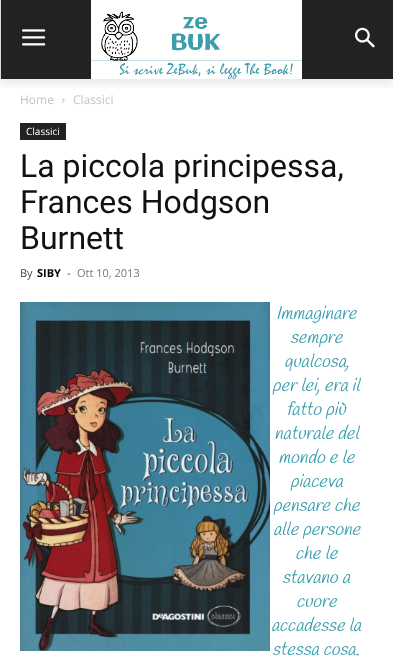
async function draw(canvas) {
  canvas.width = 393;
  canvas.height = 661;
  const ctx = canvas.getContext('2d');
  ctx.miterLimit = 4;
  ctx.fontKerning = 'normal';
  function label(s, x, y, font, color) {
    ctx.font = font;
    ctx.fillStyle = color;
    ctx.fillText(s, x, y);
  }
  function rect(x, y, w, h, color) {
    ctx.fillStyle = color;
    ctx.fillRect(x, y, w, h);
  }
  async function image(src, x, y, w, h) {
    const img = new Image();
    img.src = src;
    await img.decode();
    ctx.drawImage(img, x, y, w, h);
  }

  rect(0, 0, 393, 661, '#dbdbdb');
  rect(1, 0, 392, 79, '#222');
  await image('assets/img1.png', 22, 29, 24, 17);
  await image('assets/img2.png', 91, 0, 211, 79);
  await image('assets/img3.png', 355, 27, 20, 21);
  rect(0, 79, 393, 582, '#fff');
  ctx.save();
  ctx.beginPath();
  ctx.rect(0, 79, 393, 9);
  ctx.clip();
  ctx.fillStyle = '#00000014';
  ctx.filter = 'blur(4px)';
  ctx.beginPath();
  ctx.rect(1, 6, 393, 79);
  ctx.fill();
  ctx.filter = 'none';
  ctx.restore();
  label('Home', 20, 104, '12px Open Sans', '#c3c3c3');
  await image('assets/img4.png', 62, 98, 3, 5);
  label('Classici', 73, 104, '12px Open Sans', '#c3c3c3');
  rect(20, 123, 46, 17, '#222');
  label('Classici', 26, 135, '10px Open Sans', '#fff');
  label('La piccola principessa,', 20, 177, '32px Roboto', '#111');
  label('Frances Hodgson', 20, 213, '32px Roboto', '#111');
  label('Burnett', 20, 249, '32px Roboto', '#111');
  label('By', 20, 277, '11px Open Sans', '#444');
  label('SIBY', 37, 277, 'bold 11px Open Sans', '#000');
  label('-', 67, 277, '11px Open Sans', '#444');
  label('Ott 10, 2013', 77, 277, '11px Open Sans', '#767676');
  await image('assets/img5.png', 20, 302, 250, 349);
  label('Immaginare', 276, 319, 'italic 18px Handlee', '#399dad');
  label('sempre', 290, 343, 'italic 18px Handlee', '#399dad');
  label('qualcosa,', 284, 367, 'italic 18px Handlee', '#399dad');
  label('per lei, era il', 272, 391, 'italic 18px Handlee', '#399dad');
  label('fatto più', 286, 415, 'italic 18px Handlee', '#399dad');
  label('naturale del', 274, 439, 'italic 18px Handlee', '#399dad');
  label('mondo e le', 278, 463, 'italic 18px Handlee', '#399dad');
  label('piaceva', 290, 487, 'italic 18px Handlee', '#399dad');
  label('pensare che', 273, 511, 'italic 18px Handlee', '#399dad');
  label('alle persone', 273, 535, 'italic 18px Handlee', '#399dad');
  label('che le', 295, 559, 'italic 18px Handlee', '#399dad');
  label('stavano a', 282, 583, 'italic 18px Handlee', '#399dad');
  label('cuore', 296, 607, 'italic 18px Handlee', '#399dad');
  label('accadesse la', 271, 631, 'italic 18px Handlee', '#399dad');
  label('stessa cosa.', 272, 655, 'italic 18px Handlee', '#399dad');
}

draw(document.querySelector('canvas'));
